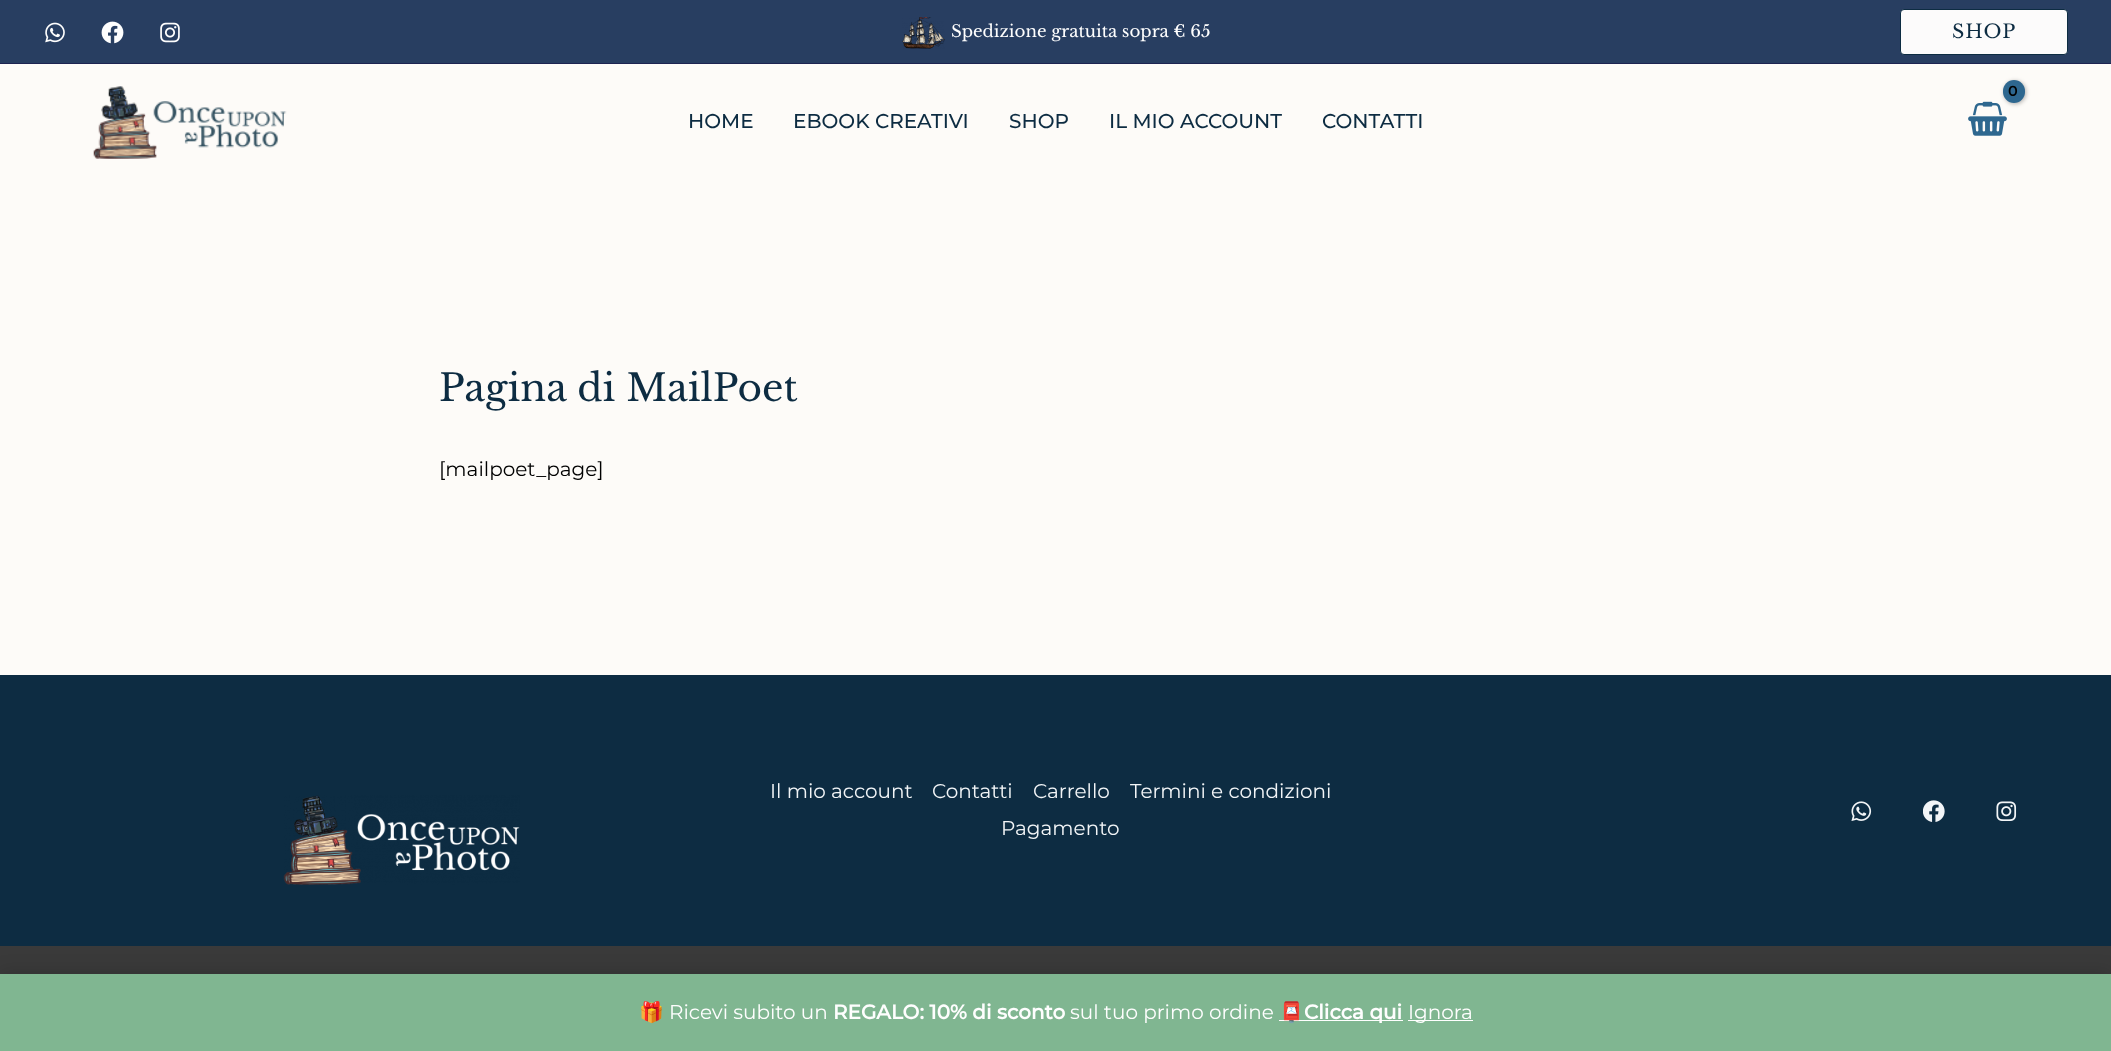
async function draw(canvas) {
  canvas.width = 2111;
  canvas.height = 1051;
  const ctx = canvas.getContext('2d');
  ctx.miterLimit = 4;
  ctx.fontKerning = 'normal';
  function label(s, x, y, font, color) {
    ctx.font = font;
    ctx.fillStyle = color;
    ctx.fillText(s, x, y);
  }
  function rect(x, y, w, h, color) {
    ctx.fillStyle = color;
    ctx.fillRect(x, y, w, h);
  }
  function roundedRect(x, y, w, h, r, color) {
    ctx.fillStyle = color;
    ctx.beginPath();
    ctx.roundRect(x, y, w, h, r);
    ctx.fill();
  }
  async function image(src, x, y, w, h) {
    const img = new Image();
    img.src = src;
    await img.decode();
    ctx.drawImage(img, x, y, w, h);
  }

  rect(0, 0, 2111, 1051, '#fdfbf8');
  rect(0, 0, 2111, 63, '#283e61');
  rect(0, 63, 2111, 1, '#1d2451');
  await image('assets/img1.png', 45, 22, 20, 21);
  await image('assets/img2.png', 101, 21, 23, 23);
  await image('assets/img3.png', 160, 22, 20, 21);
  await image('assets/img4.png', 902, 17, 43, 32);
  label('Spedizione gratuita sopra € 65', 951, 37, '16.7px Libre Baskerville', '#fefefe');
  ctx.fillStyle = '#fcfbfb';
  ctx.beginPath();
  ctx.roundRect(1900.5, 9.5, 167, 45, 3.5);
  ctx.fill();
  ctx.strokeStyle = '#0d2c42';
  ctx.stroke();
  ctx.letterSpacing = '1px';
  label('SHOP', 1952, 38, '19px Libre Baskerville', '#0d2c42');
  await image('assets/img5.png', 93, 86, 194, 73);
  await image('assets/img6.png', 1968, 101, 39, 35);
  ctx.fillStyle = '#0000004d';
  ctx.filter = 'blur(2px)';
  ctx.beginPath();
  ctx.roundRect(2004, 81, 22, 23, 11);
  ctx.fill();
  ctx.filter = 'none';
  roundedRect(2003, 80, 22, 23, 11, '#2e678f');
  ctx.letterSpacing = '-1px';
  label('0', 2008, 96, 'bold 14px Montserrat', '#000');
  ctx.letterSpacing = '0px';
  label('HOME', 688, 128, '500 20px Montserrat', '#0d2c42');
  label('EBOOK CREATIVI', 793, 128, '500 20px Montserrat', '#0d2c42');
  label('SHOP', 1009, 128, '500 20px Montserrat', '#0d2c42');
  label('IL MIO ACCOUNT', 1109, 128, '500 20px Montserrat', '#0d2c42');
  label('CONTATTI', 1322, 128, '500 20px Montserrat', '#0d2c42');
  label('Pagina di MailPoet', 439, 401, '37.5px Libre Baskerville', '#0d2c42');
  label('[mailpoet_page]', 439, 476, '20px Montserrat', '#000');
  rect(0, 675, 2111, 271, '#0d2c42');
  await image('assets/img7.png', 283, 795, 237, 90);
  label('Il mio account', 770, 798, '20px Montserrat', '#f2f5f7');
  label('Contatti', 932, 798, '20px Montserrat', '#f2f5f7');
  label('Carrello', 1033, 798, '20px Montserrat', '#f2f5f7');
  label('Termini e condizioni', 1130, 798, '20px Montserrat', '#f2f5f7');
  label('Pagamento', 1001, 835, '20px Montserrat', '#f2f5f7');
  await image('assets/img8.png', 1851, 801, 21, 20);
  await image('assets/img9.png', 1923, 800, 22, 22);
  await image('assets/img10.png', 1996, 801, 21, 20);
  rect(0, 946, 2111, 28, '#3a3a3a');
  ctx.fillStyle = '#00000033';
  ctx.filter = 'blur(10px)';
  ctx.beginPath();
  ctx.rect(0, 975, 2111, 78);
  ctx.fill();
  ctx.filter = 'none';
  rect(0, 974, 2111, 77, '#80b691');
  label('🎁', 639, 1019, '20px Noto Color Emoji', '#fefefe');
  label('Ricevi subito un', 669, 1019, '20px Montserrat', '#fefefe');
  label('REGALO: 10% di sconto', 833, 1019, 'bold 20px Montserrat', '#fefefe');
  label('sul tuo primo ordine', 1070, 1019, '20px Montserrat', '#fefefe');
  rect(1279, 1020, 124, 1, '#fff');
  label('📮', 1279, 1019, 'bold 20px Noto Color Emoji', '#fefefe');
  label('Clicca qui', 1304, 1019, 'bold 20px Montserrat', '#fefefe');
  rect(1408, 1020, 65, 1, '#fff');
  label('Ignora', 1408, 1019, '20px Montserrat', '#fefefe');
}

draw(document.querySelector('canvas'));
